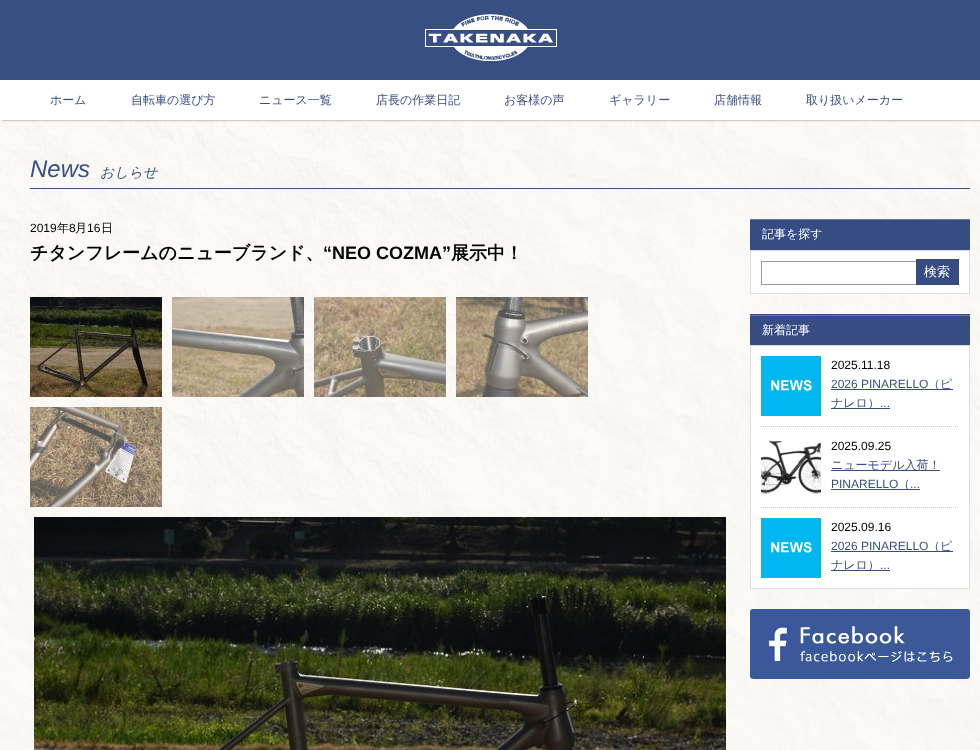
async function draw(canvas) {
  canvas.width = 980;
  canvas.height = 750;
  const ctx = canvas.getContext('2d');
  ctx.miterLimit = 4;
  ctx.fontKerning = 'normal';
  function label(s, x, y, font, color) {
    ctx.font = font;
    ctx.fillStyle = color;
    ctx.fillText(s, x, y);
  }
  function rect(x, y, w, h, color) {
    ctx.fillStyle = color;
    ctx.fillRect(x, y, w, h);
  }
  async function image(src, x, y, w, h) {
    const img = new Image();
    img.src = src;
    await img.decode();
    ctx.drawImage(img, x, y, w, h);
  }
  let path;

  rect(0, 0, 980, 750, '#fff');
  await image('assets/img1.png', 0, 120, 980, 630);
  rect(0, 0, 980, 80, '#384f83');
  await image('assets/img2.png', 425, 14, 132, 47);
  ctx.fillStyle = '#777';
  ctx.filter = 'blur(1px)';
  ctx.beginPath();
  ctx.rect(2, 84, 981, 36);
  ctx.fill();
  ctx.filter = 'none';
  rect(0, 82, 980, 38, '#fff');
  label('ホーム', 50, 104, '500 12px WenQuanYi Zen Hei', '#384f83');
  label('自転車の選び方', 131, 104, '500 12px WenQuanYi Zen Hei', '#384f83');
  label('ニュース一覧', 259, 104, '500 12px WenQuanYi Zen Hei', '#384f83');
  label('店長の作業日記', 376, 104, '500 12px WenQuanYi Zen Hei', '#384f83');
  label('お客様の声', 504, 104, '500 12px WenQuanYi Zen Hei', '#384f83');
  label('ギャラリー', 609, 104, '500 12px WenQuanYi Zen Hei', '#384f83');
  label('店舗情報', 714, 104, '500 12px WenQuanYi Zen Hei', '#384f83');
  label('取り扱いメーカー', 806, 104, '500 12px WenQuanYi Zen Hei', '#384f83');
  rect(30, 188, 940, 1, '#384f83');
  label('News', 30, 177, 'italic 24px Liberation Sans', '#384f83');
  label('おしらせ', 100, 177, 'italic 500 14px WenQuanYi Zen Hei', '#384f83');
  label('2019', 30, 232, '12px Liberation Sans', '#000');
  label('年', 57, 232, '500 12px WenQuanYi Zen Hei', '#000');
  label('8', 69, 232, '12px Liberation Sans', '#000');
  label('月', 75, 232, '500 12px WenQuanYi Zen Hei', '#000');
  label('16', 87, 232, '12px Liberation Sans', '#000');
  label('日', 101, 232, '500 12px WenQuanYi Zen Hei', '#000');
  label('チタンフレームのニューブランド、', 30, 259, 'bold 18px WenQuanYi Zen Hei', '#000');
  label('“NEO COZMA”', 323, 259, 'bold 18px Liberation Sans', '#000');
  label('展示中！', 451, 259, 'bold 18px WenQuanYi Zen Hei', '#000');
  await image('assets/img3.png', 30, 297, 132, 100);
  await image('assets/img4.png', 172, 297, 132, 100);
  await image('assets/img5.png', 314, 297, 132, 100);
  await image('assets/img6.png', 456, 297, 132, 100);
  await image('assets/img7.png', 30, 407, 132, 100);
  await image('assets/img8.png', 34, 517, 692, 233);
  rect(750, 220, 220, 30, '#374c83');
  rect(750, 219, 220, 1, '#6d7791');
  label('記事を探す', 762, 238, '500 12px WenQuanYi Zen Hei', '#fff');
  ctx.beginPath();
  ctx.rect(750.5, 250.5, 219, 43);
  ctx.fill();
  ctx.strokeStyle = '#ddd';
  ctx.stroke();
  ctx.strokeStyle = '#999';
  ctx.strokeRect(761.5, 261.5, 157, 23);
  rect(916, 259, 43, 26, '#374c83');
  label('検索', 924, 276, '500 13px WenQuanYi Zen Hei', '#fff');
  rect(750, 314, 220, 1, '#374c83');
  rect(750, 316, 220, 29, '#374c83');
  rect(750, 315, 220, 1, '#6d7791');
  label('新着記事', 762, 334, '500 12px WenQuanYi Zen Hei', '#fff');
  ctx.beginPath();
  ctx.rect(750.5, 345.5, 219, 243);
  ctx.fill();
  ctx.strokeStyle = '#ddd';
  ctx.stroke();
  path = new Path2D('M761 426.5H959');
  ctx.strokeStyle = '#ccc';
  ctx.setLineDash([1, 1]);
  ctx.stroke(path);
  await image('assets/img9.png', 761, 356, 60, 60);
  label('2025.11.18', 831, 369, '12px Liberation Sans', '#000');
  label('2026 PINARELLO', 831, 388, '12px Liberation Sans', '#384f83');
  rect(831, 389, 122, 1, '#384f83');
  label('（ピ', 928, 388, '500 12px WenQuanYi Zen Hei', '#384f83');
  rect(831, 408, 59, 1, '#384f83');
  label('ナレロ）', 831, 407, '500 12px WenQuanYi Zen Hei', '#384f83');
  label('...', 880, 407, '12px Liberation Sans', '#384f83');
  path = new Path2D('M761 507.5H959');
  ctx.stroke(path);
  await image('assets/img10.png', 761, 440, 60, 54);
  label('2025.09.25', 831, 450, '12px Liberation Sans', '#000');
  rect(831, 470, 109, 1, '#384f83');
  label('ニューモデル入荷！', 831, 469, '500 12px WenQuanYi Zen Hei', '#384f83');
  label('PINARELLO', 831, 488, '12px Liberation Sans', '#384f83');
  rect(831, 489, 89, 1, '#384f83');
  label('（', 898, 488, '500 12px WenQuanYi Zen Hei', '#384f83');
  label('...', 910, 488, '12px Liberation Sans', '#384f83');
  await image('assets/img9.png', 761, 518, 60, 60);
  label('2025.09.16', 831, 531, '12px Liberation Sans', '#000');
  label('2026 PINARELLO', 831, 550, '12px Liberation Sans', '#384f83');
  rect(831, 551, 122, 1, '#384f83');
  label('（ピ', 928, 550, '500 12px WenQuanYi Zen Hei', '#384f83');
  rect(831, 570, 59, 1, '#384f83');
  label('ナレロ）', 831, 569, '500 12px WenQuanYi Zen Hei', '#384f83');
  label('...', 880, 569, '12px Liberation Sans', '#384f83');
  await image('assets/img11.png', 750, 609, 220, 70);
}

draw(document.querySelector('canvas'));
